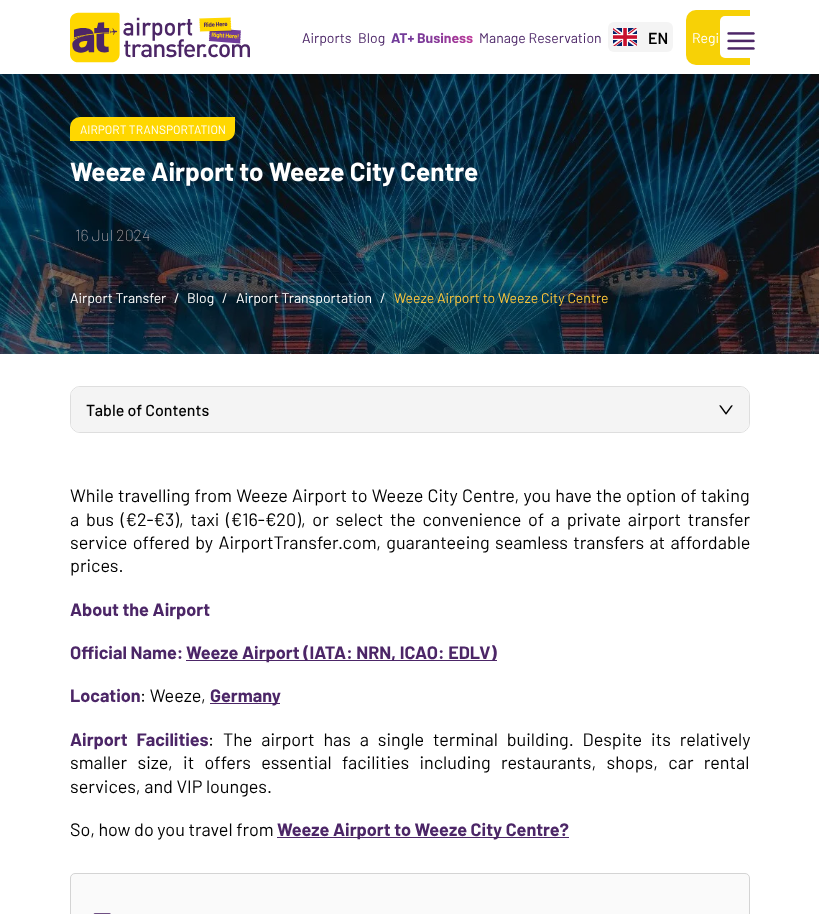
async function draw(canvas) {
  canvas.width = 819;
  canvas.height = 914;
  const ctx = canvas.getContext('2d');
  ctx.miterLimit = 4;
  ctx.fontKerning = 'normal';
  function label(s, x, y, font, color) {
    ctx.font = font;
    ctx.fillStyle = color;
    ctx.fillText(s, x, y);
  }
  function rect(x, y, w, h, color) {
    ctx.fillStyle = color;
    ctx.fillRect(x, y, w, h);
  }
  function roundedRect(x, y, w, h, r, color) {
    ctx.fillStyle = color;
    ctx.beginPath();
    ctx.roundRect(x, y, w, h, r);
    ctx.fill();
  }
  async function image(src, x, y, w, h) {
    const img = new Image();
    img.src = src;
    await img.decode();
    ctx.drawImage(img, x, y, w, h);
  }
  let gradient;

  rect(0, 0, 819, 914, '#fff');
  await image('assets/img4.png', 0, 74, 819, 280);
  ctx.fillStyle = '#00000038';
  ctx.filter = 'blur(10px)';
  ctx.beginPath();
  ctx.rect(0, 0, 819, 74);
  ctx.fill();
  ctx.filter = 'none';
  rect(0, 0, 819, 74, '#fff');
  await image('assets/img1.png', 70, 12, 180, 51);
  label('Airports', 302, 43, '14px Barlow', '#4c2667');
  label('Blog', 358, 43, '14px Barlow', '#4c2667');
  ctx.font = 'bold 14px Barlow';
  gradient = ctx.createLinearGradient(398, 57, 467, 17);
  gradient.addColorStop(0, '#703c99');
  gradient.addColorStop(0.21, '#733b99');
  gradient.addColorStop(0.42, '#7f3b99');
  gradient.addColorStop(0.63, '#933a99');
  gradient.addColorStop(0.84, '#af3999');
  gradient.addColorStop(1, '#cb3899');
  ctx.fillStyle = gradient;
  ctx.fillText('AT+ Business', 391, 43);
  label('Manage Reservation', 479, 43, '14px Barlow', '#4c2667');
  roundedRect(608, 22, 65, 30, 6, '#f4f4f4');
  await image('assets/img2.png', 613, 28, 24, 18);
  label('EN', 648, 44, '600 16px Barlow', '#000');
  ctx.fillStyle = '#f7d106';
  ctx.beginPath();
  ctx.roundRect(686, 10, 64, 55, [10, 0, 0, 10]);
  ctx.fill();
  label('Regi', 692, 43, '14px Barlow', '#fff');
  roundedRect(720, 16, 42, 42, 5, '#fff');
  await image('assets/img3.png', 727, 32, 28, 18);
  ctx.fillStyle = '#ffd700';
  ctx.beginPath();
  ctx.roundRect(70, 117, 165, 24, [10, 0, 10, 0]);
  ctx.fill();
  label('AIRPORT TRANSPORTATION', 80, 134, '12px Barlow', '#fff');
  label('Weeze Airport to Weeze City Centre', 70, 181, 'bold 26px Barlow', '#fff');
  label('16 Jul 2024', 75, 241, '200 16px Barlow', '#cabec0');
  label('Airport Transfer', 70, 303, '14px Barlow', '#fff');
  label('/', 174, 303, '14px Barlow', '#fff');
  label('Blog', 187, 303, '14px Barlow', '#fff');
  label('/', 222, 303, '14px Barlow', '#fff');
  label('Airport Transportation', 236, 303, '14px Barlow', '#fff');
  label('/', 380, 303, '14px Barlow', '#fff');
  label('Weeze Airport to Weeze City Centre', 394, 303, '14px Barlow', '#fcc53b');
  ctx.beginPath();
  ctx.roundRect(70.5, 386.5, 679, 46, 9.5);
  ctx.strokeStyle = '#dedede';
  ctx.stroke();
  roundedRect(71, 387, 678, 45, 9, '#f4f4f4');
  label('Table of Contents', 86, 416, '500 16px Barlow', '#000');
  await image('assets/img5.png', 719, 405, 14, 10);
  ctx.wordSpacing = '0.6px';
  label('While travelling from Weeze Airport to Weeze City Centre, you have the option of taking', 70, 502, '18px Barlow', '#000');
  ctx.wordSpacing = '3.1px';
  label('a bus (€2-€3), taxi (€16-€20), or select the convenience of a private airport transfer', 70, 526, '18px Barlow', '#000');
  ctx.wordSpacing = '1.75px';
  label('service offered by AirportTransfer.com, guaranteeing seamless transfers at affordable', 70, 549, '18px Barlow', '#000');
  ctx.wordSpacing = '0px';
  label('prices.', 70, 572, '18px Barlow', '#000');
  label('About the Airport', 70, 616, 'bold 18px Barlow', '#4c2667');
  label('Official Name:', 70, 659, 'bold 18px Barlow', '#4c2667');
  rect(186, 660, 311, 1, '#4c2667');
  label('Weeze Airport (IATA: NRN, ICAO: EDLV)', 186, 659, 'bold 18px Barlow', '#4c2667');
  label('Location', 70, 702, 'bold 18px Barlow', '#4c2667');
  label(': Weeze,', 140, 702, '18px Barlow', '#000');
  rect(210, 703, 70, 1, '#4c2667');
  label('Germany', 210, 702, 'bold 18px Barlow', '#4c2667');
  ctx.wordSpacing = '5.25px';
  label('Airport Facilities', 70, 746, 'bold 18px Barlow', '#4c2667');
  label(': The airport has a single terminal building. Despite its relatively', 208, 746, '18px Barlow', '#000');
  ctx.wordSpacing = '6.75px';
  label('smaller size, it offers essential facilities including restaurants, shops, car rental', 70, 769, '18px Barlow', '#000');
  ctx.wordSpacing = '0px';
  label('services, and VIP lounges.', 70, 793, '18px Barlow', '#000');
  label('So, how do you travel from', 70, 836, '18px Barlow', '#000');
  rect(277, 837, 292, 1, '#4c2667');
  label('Weeze Airport to Weeze City Centre?', 277, 836, 'bold 18px Barlow', '#4c2667');
  ctx.fillStyle = '#fafafa';
  ctx.beginPath();
  ctx.roundRect(70.5, 873.5, 679, 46, 4.5);
  ctx.fill();
  ctx.strokeStyle = '#d4d4d4';
  ctx.stroke();
  await image('assets/img6.png', 93, 913, 18, 1);
}

draw(document.querySelector('canvas'));
